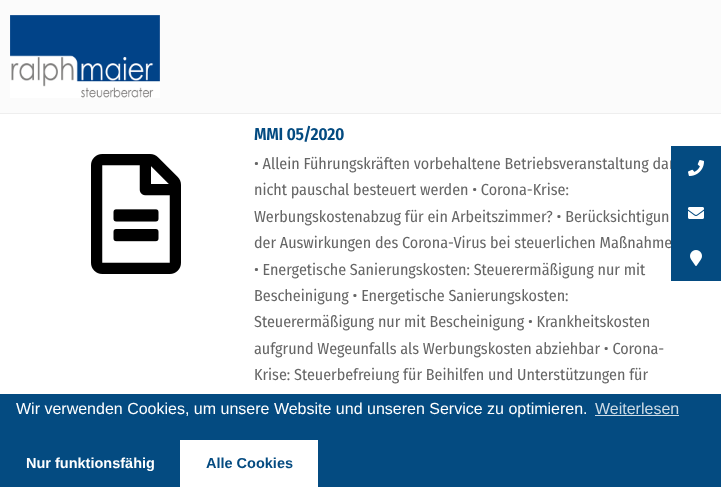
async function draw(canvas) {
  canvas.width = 721;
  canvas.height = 487;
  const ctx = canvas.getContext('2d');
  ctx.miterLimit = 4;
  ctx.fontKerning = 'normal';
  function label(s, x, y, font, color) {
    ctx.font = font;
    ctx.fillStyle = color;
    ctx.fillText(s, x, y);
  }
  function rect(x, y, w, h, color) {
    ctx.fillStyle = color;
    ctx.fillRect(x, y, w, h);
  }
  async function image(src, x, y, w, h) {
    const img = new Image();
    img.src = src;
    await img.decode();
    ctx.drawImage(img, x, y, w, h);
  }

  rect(0, 0, 721, 487, '#fff');
  rect(0, 0, 721, 113, '#fbfbfb');
  rect(0, 113, 721, 1, '#eee');
  await image('assets/img1.png', 10, 15, 150, 83);
  await image('assets/img2.png', 91, 154, 90, 120);
  ctx.letterSpacing = '-0.3px';
  label('MMI 05/2020', 254, 140, '600 17.5px Fira Sans Condensed', '#044b81');
  ctx.letterSpacing = '0px';
  label('• Allein Führungskräften vorbehaltene Betriebsveranstaltung dar', 254, 169, '16px Fira Sans Condensed', '#666');
  label('nicht pauschal besteuert werden • Corona-Krise:', 254, 195, '16px Fira Sans Condensed', '#666');
  label('Werbungskostenabzug für ein Arbeitszimmer? • Berücksichtigun', 254, 222, '16px Fira Sans Condensed', '#666');
  label('der Auswirkungen des Corona-Virus bei steuerlichen Maßnahme', 254, 248, '16px Fira Sans Condensed', '#666');
  label('• Energetische Sanierungskosten: Steuerermäßigung nur mit', 254, 275, '16px Fira Sans Condensed', '#666');
  label('Bescheinigung • Energetische Sanierungskosten:', 254, 301, '16px Fira Sans Condensed', '#666');
  label('Steuerermäßigung nur mit Bescheinigung • Krankheitskosten', 254, 327, '16px Fira Sans Condensed', '#666');
  label('aufgrund Wegeunfalls als Werbungskosten abziehbar • Corona-', 254, 354, '16px Fira Sans Condensed', '#666');
  label('Krise: Steuerbefreiung für Beihilfen und Unterstützungen für', 254, 380, '16px Fira Sans Condensed', '#666');
  rect(671, 146, 50, 135, '#044b81');
  await image('assets/img3.png', 688, 160, 16, 16);
  await image('assets/img4.png', 688, 207, 16, 12);
  await image('assets/img5.png', 690, 250, 12, 16);
  rect(0, 394, 721, 93, '#044b81');
  label('Wir verwenden Cookies, um unsere Website und unseren Service zu optimieren.', 16, 414, '16px Liberation Sans', '#fff');
  label('Weiterlesen', 595, 414, '16px Liberation Sans', '#cddbe6');
  rect(595, 415, 84, 1, '#cddbe6');
  label('Nur funktionsfähig', 26, 468, 'bold 14.5px Liberation Sans', '#fff');
  rect(180, 440, 138, 47, '#fff');
  label('Alle Cookies', 206, 468, 'bold 14.5px Liberation Sans', '#044b81');
}

draw(document.querySelector('canvas'));
